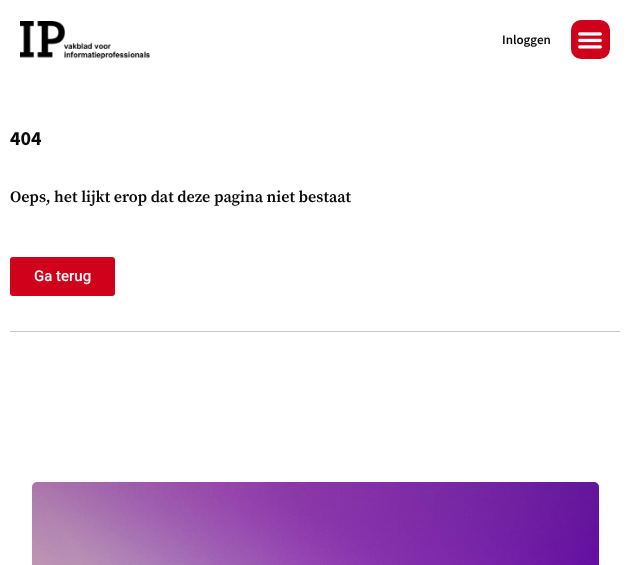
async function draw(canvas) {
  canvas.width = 630;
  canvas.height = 565;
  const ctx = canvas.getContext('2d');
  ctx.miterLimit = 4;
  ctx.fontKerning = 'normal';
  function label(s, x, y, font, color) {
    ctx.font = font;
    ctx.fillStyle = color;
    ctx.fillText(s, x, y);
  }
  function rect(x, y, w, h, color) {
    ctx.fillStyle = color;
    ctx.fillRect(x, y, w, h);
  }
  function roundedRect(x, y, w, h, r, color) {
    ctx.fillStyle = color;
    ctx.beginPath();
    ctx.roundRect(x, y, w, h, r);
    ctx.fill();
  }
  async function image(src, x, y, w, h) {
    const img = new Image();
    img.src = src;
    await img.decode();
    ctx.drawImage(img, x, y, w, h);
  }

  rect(0, 0, 630, 565, '#fff');
  await image('assets/img1.png', 20, 21, 130, 38);
  label('Inloggen', 502, 44, '600 13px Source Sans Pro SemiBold', '#0a0a0a');
  roundedRect(571, 20, 39, 39, 10, '#d0011b');
  await image('assets/img2.png', 578, 32, 24, 17);
  label('404', 10, 145, 'bold 20px Source Sans Pro', '#0a0a0a');
  label('Oeps, het lijkt erop dat deze pagina niet bestaat', 10, 202, '600 16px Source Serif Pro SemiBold', '#0a0a0a');
  roundedRect(10, 257, 105, 39, 3, '#d0011b');
  label('Ga terug', 34, 281, '500 15px Roboto', '#fff');
  rect(10, 331, 610, 1, '#c7c7c7');
  await image('assets/img3.png', 32, 482, 567, 83);
}

draw(document.querySelector('canvas'));
